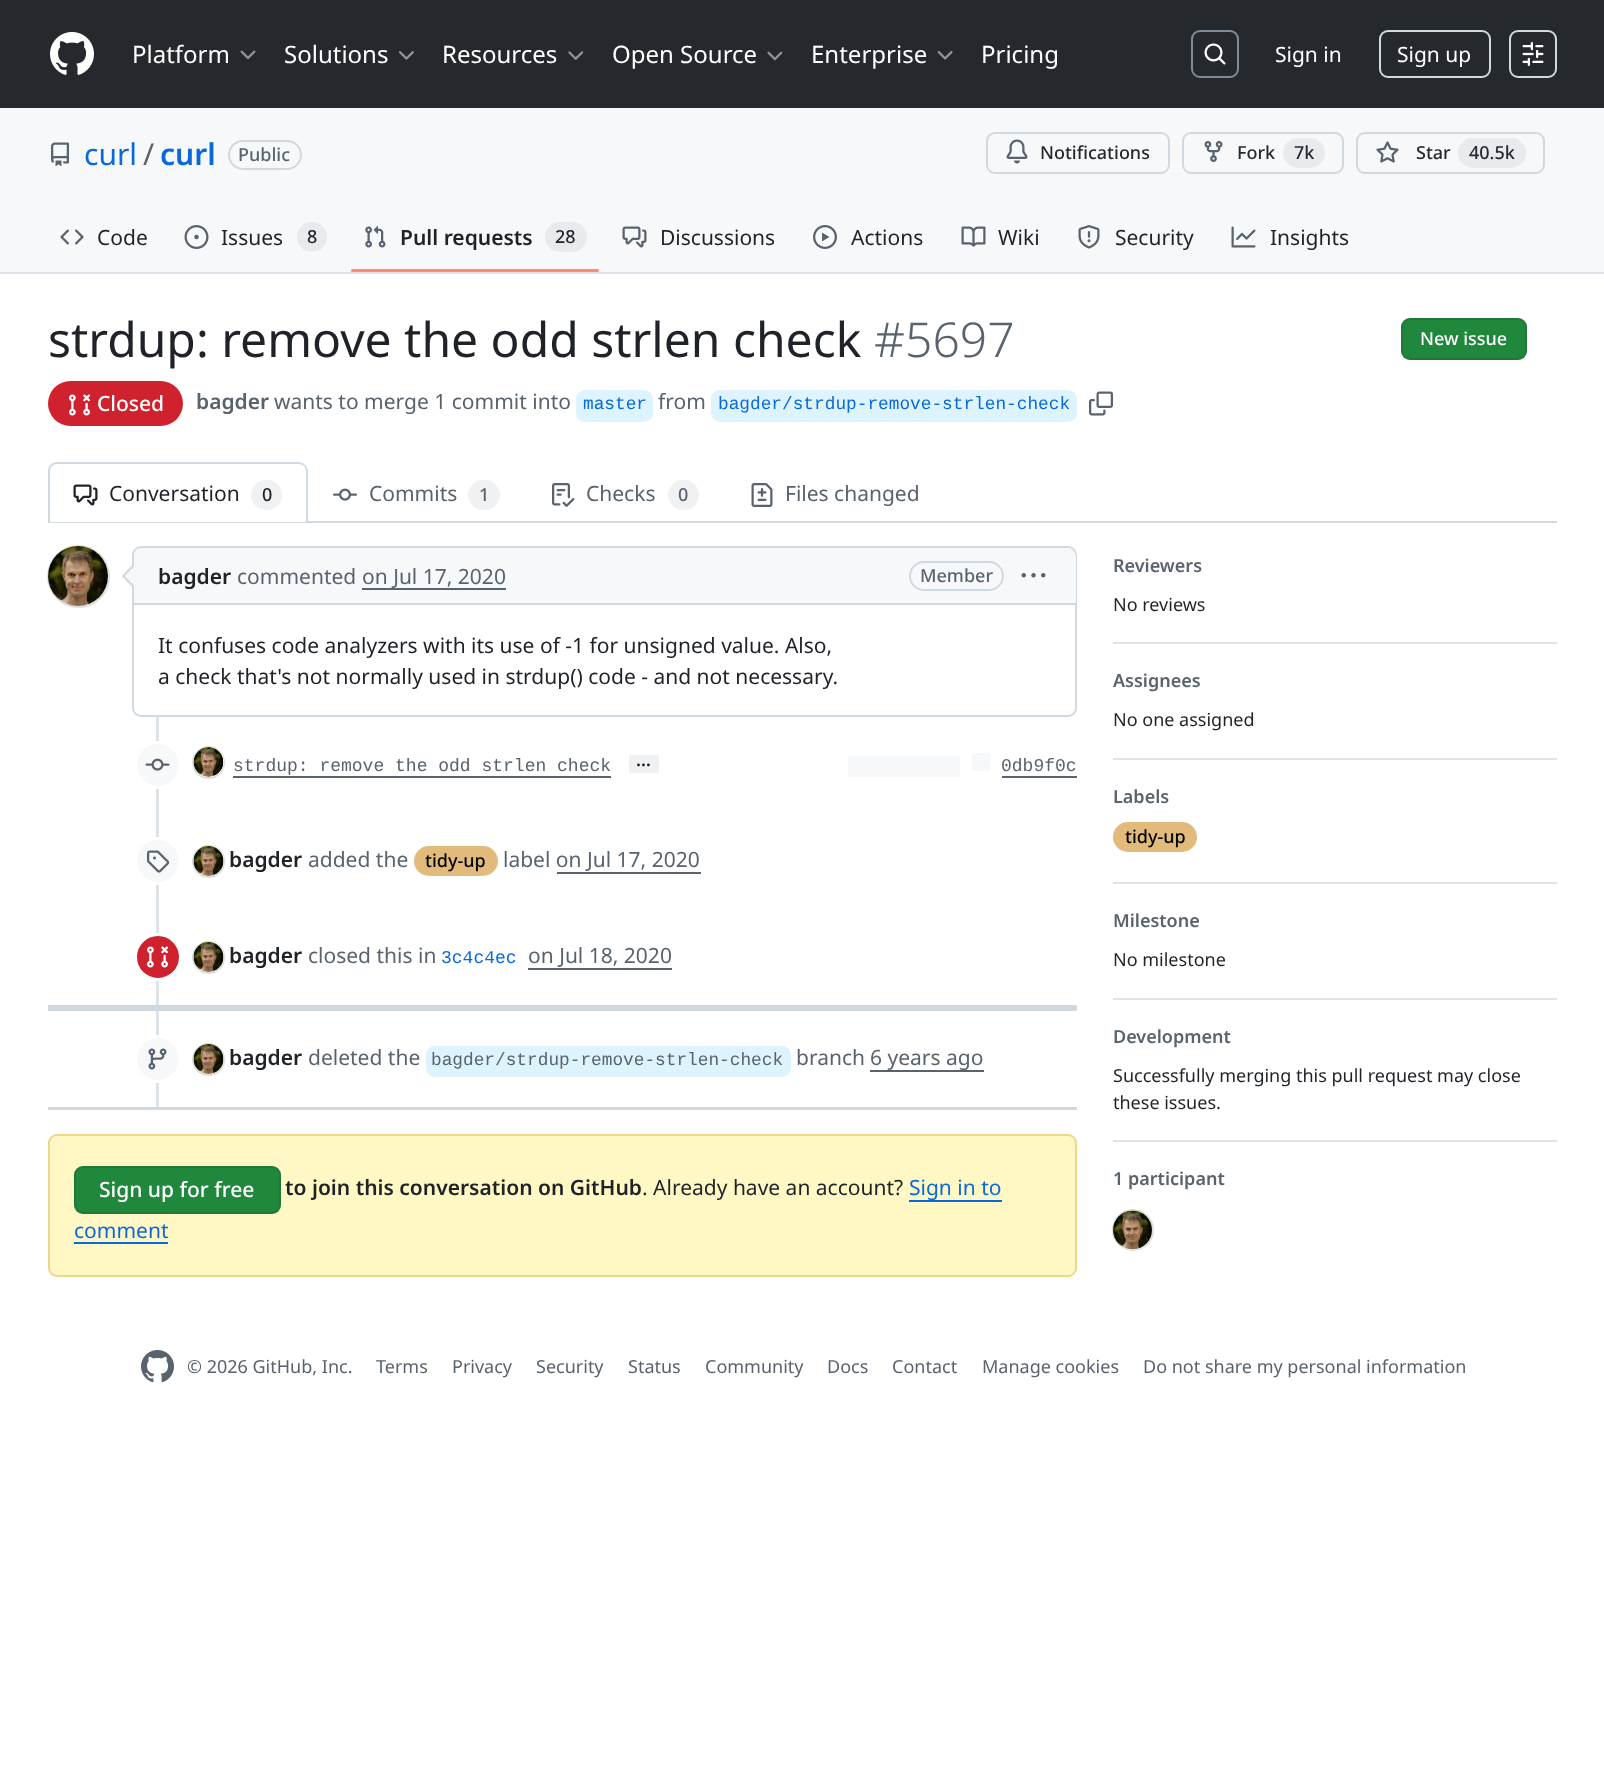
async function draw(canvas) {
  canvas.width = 1604;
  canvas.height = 1787;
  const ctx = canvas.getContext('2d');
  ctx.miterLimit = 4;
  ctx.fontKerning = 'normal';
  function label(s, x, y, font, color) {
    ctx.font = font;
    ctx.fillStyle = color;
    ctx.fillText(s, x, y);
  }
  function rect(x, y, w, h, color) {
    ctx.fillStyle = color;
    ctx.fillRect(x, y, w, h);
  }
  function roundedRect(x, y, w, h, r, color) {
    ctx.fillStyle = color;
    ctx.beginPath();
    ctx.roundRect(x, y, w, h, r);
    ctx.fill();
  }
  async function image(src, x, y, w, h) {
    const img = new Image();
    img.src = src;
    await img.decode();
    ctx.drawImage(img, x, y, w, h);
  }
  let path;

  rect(0, 0, 1604, 1787, '#fff');
  rect(0, 273, 1604, 1, '#dfe4e9');
  rect(0, 0, 1604, 108, '#25292e');
  await image('assets/img1.png', 50, 32, 44, 43);
  label('Platform', 132, 63, '24px Noto Sans', '#fff');
  await image('assets/img2.png', 240, 50, 16, 10);
  label('Solutions', 284, 63, '24px Noto Sans', '#fff');
  await image('assets/img3.png', 399, 51, 15, 9);
  label('Resources', 442, 63, '24px Noto Sans', '#fff');
  await image('assets/img4.png', 568, 51, 16, 9);
  label('Open Source', 612, 63, '24px Noto Sans', '#fff');
  await image('assets/img5.png', 767, 51, 16, 10);
  label('Enterprise', 811, 63, '24px Noto Sans', '#fff');
  await image('assets/img6.png', 937, 51, 16, 9);
  label('Pricing', 981, 63, '24px Noto Sans', '#fff');
  ctx.beginPath();
  ctx.roundRect(1192, 31, 46, 46, 8);
  ctx.strokeStyle = '#818b98';
  ctx.lineWidth = 2;
  ctx.stroke();
  await image('assets/img7.png', 1204, 43, 22, 22);
  label('Sign in', 1275, 62, '21px Noto Sans', '#fff');
  ctx.beginPath();
  ctx.roundRect(1380, 31, 110, 46, 8);
  ctx.strokeStyle = '#d1d9e0';
  ctx.stroke();
  label('Sign up', 1397, 62, '21px Noto Sans', '#fff');
  ctx.beginPath();
  ctx.roundRect(1510, 31, 46, 46, 8);
  ctx.stroke();
  await image('assets/img8.png', 1522, 42, 22, 24);
  rect(0, 108, 1604, 164, '#f6f8fa');
  rect(0, 272, 1604, 1, '#dce2e8');
  await image('assets/img9.png', 51, 142, 18, 24);
  label('curl', 84, 165, '30px Noto Sans', '#0969da');
  label('/', 143, 165, '30px Noto Sans', '#59636e');
  label('curl', 160, 165, '600 30px Noto Sans', '#0969da');
  ctx.beginPath();
  ctx.roundRect(229, 141, 72, 28, 14);
  ctx.stroke();
  label('Public', 238, 161, '500 18px Noto Sans', '#59636e');
  ctx.beginPath();
  ctx.roundRect(987, 133, 182, 40, 8);
  ctx.stroke();
  await image('assets/img10.png', 1006, 139, 22, 25);
  label('Notifications', 1040, 159, '500 18px Noto Sans', '#25292e');
  ctx.beginPath();
  ctx.roundRect(1183, 133, 160, 40, 8);
  ctx.stroke();
  await image('assets/img11.png', 1204, 141, 19, 21);
  label('Fork', 1237, 159, '500 18px Noto Sans', '#25292e');
  roundedRect(1283, 138, 42, 30, 15, '#e8ebee');
  label('7k', 1294, 159, '500 18px Noto Sans', '#25292e');
  ctx.beginPath();
  ctx.roundRect(1357, 133, 187, 40, 8);
  ctx.stroke();
  await image('assets/img12.png', 1376, 141, 23, 22);
  label('Star', 1416, 159, '500 18px Noto Sans', '#25292e');
  roundedRect(1458, 138, 68, 30, 15, '#e8ebee');
  label('40.5k', 1469, 159, '500 18px Noto Sans', '#25292e');
  await image('assets/img13.png', 60, 229, 24, 16);
  label('Code', 97, 245, '21px Noto Sans', '#1f2328');
  await image('assets/img14.png', 184, 225, 25, 24);
  label('Issues', 221, 245, '21px Noto Sans', '#1f2328');
  ctx.fillStyle = '#e8ebee';
  ctx.beginPath();
  ctx.arc(312, 237, 15, 0, 2 * Math.PI);
  ctx.fill();
  label('8', 307, 243, '500 18px Noto Sans', '#1f2328');
  await image('assets/img15.png', 365, 226, 21, 22);
  label('Pull requests', 400, 245, '600 21px Noto Sans', '#1f2328');
  roundedRect(545, 222, 42, 30, 15, '#e8ebee');
  label('28', 555, 243, '500 18px Noto Sans', '#1f2328');
  roundedRect(351, 269, 248, 3, 1.5, '#fd8c73');
  await image('assets/img16.png', 622, 226, 25, 22);
  label('Discussions', 660, 245, '21px Noto Sans', '#1f2328');
  await image('assets/img17.png', 813, 225, 24, 24);
  label('Actions', 851, 245, '21px Noto Sans', '#1f2328');
  await image('assets/img18.png', 961, 226, 25, 21);
  label('Wiki', 998, 245, '21px Noto Sans', '#1f2328');
  await image('assets/img19.png', 1078, 225, 22, 24);
  label('Security', 1115, 245, '21px Noto Sans', '#1f2328');
  await image('assets/img20.png', 1231, 226, 25, 22);
  label('Insights', 1270, 245, '21px Noto Sans', '#1f2328');
  label('strdup: remove the odd strlen check', 48, 357, '48px Noto Sans', '#1f2328');
  label('#5697', 874, 357, '300 48px Noto Sans', '#59636e');
  roundedRect(1401, 318, 126, 42, 9, '#1f883d');
  ctx.beginPath();
  ctx.roundRect(1402, 319, 124, 40, 8);
  ctx.strokeStyle = '#1f232826';
  ctx.stroke();
  label('New issue', 1420, 345, '500 18px Noto Sans', '#fff');
  roundedRect(48, 381, 135, 45, 22.5, '#cf222e');
  await image('assets/img21.png', 69, 394, 21, 22);
  label('Closed', 97, 411, '500 21px Noto Sans', '#fff');
  label('bagder', 196, 409, '600 21px Noto Sans', '#59636e');
  label('wants to merge 1 commit into', 274, 409, '21px Noto Sans', '#59636e');
  roundedRect(576, 390, 77, 32, 9, '#ddf4ff');
  label('master', 583, 409, '17.8px Liberation Mono', '#0969da');
  label('from', 658, 409, '21px Noto Sans', '#59636e');
  roundedRect(711, 390, 366, 32, 9, '#ddf4ff');
  label('bagder/strdup-remove-strlen-check', 718, 409, '17.8px Liberation Mono', '#0969da');
  await image('assets/img22.png', 1089, 391, 24, 25);
  rect(48, 521, 1509, 2, '#d1d9e0');
  ctx.fillStyle = '#fff';
  ctx.beginPath();
  ctx.roundRect(48, 462, 260, 60, [9, 9, 0, 0]);
  ctx.fill();
  ctx.fillStyle = '#d1d9e0';
  path = new Path2D('M57 462H298C303 462 308 466 308 471V522H48V471C48 466 52 462 57 462ZM57 464H298C303 464 306 467 306 471V522H50V471C50 467 53 464 57 464Z');
  ctx.fill(path, 'evenodd');
  await image('assets/img23.png', 73, 484, 25, 22);
  label('Conversation', 109, 501, '21px Noto Sans', '#1f2328');
  roundedRect(251, 480, 31, 30, 15, '#f0f1f3');
  label('0', 262, 501, '500 18px Noto Sans', '#1f2328');
  await image('assets/img24.png', 333, 488, 24, 13);
  label('Commits', 369, 501, '21px Noto Sans', '#59636e');
  roundedRect(468, 480, 32, 30, 15, '#f0f1f3');
  label('1', 479, 501, '500 18px Noto Sans', '#59636e');
  await image('assets/img25.png', 552, 483, 23, 24);
  label('Checks', 586, 501, '21px Noto Sans', '#59636e');
  roundedRect(668, 480, 31, 30, 15, '#f0f1f3');
  label('0', 678, 501, '500 18px Noto Sans', '#59636e');
  await image('assets/img26.png', 751, 483, 22, 24);
  label('Files changed', 785, 501, '21px Noto Sans', '#59636e');
  ctx.beginPath();
  ctx.arc(78.5, 576.5, 30.5, 0, 2 * Math.PI);
  ctx.strokeStyle = '#dddedf';
  ctx.stroke();
  ctx.fillStyle = '#fff';
  ctx.beginPath();
  ctx.arc(78, 576, 30, 0, 2 * Math.PI);
  ctx.fill();
  await image('assets/img27.png', 48, 546, 60, 60);
  ctx.beginPath();
  ctx.roundRect(133, 547, 943, 169, 8);
  ctx.strokeStyle = '#d1d9e0';
  ctx.stroke();
  ctx.fillStyle = '#d1d9e0';
  path = new Path2D('M122 575.5L133.5 564V588L122 576.5Z');
  ctx.fill(path);
  ctx.fillStyle = '#f6f8fa';
  ctx.beginPath();
  ctx.roundRect(134, 548, 942, 57, [9, 9, 0, 0]);
  ctx.fill();
  path = new Path2D('M125 575.5L136.5 564V588L125 576.5Z');
  ctx.fill(path);
  rect(134, 603, 942, 2, '#d1d9e0');
  label('bagder', 158, 584, '600 21px Noto Sans', '#1f2328');
  label('commented', 237, 584, '21px Noto Sans', '#59636e');
  label('on Jul 17, 2020', 362, 584, '21px Noto Sans', '#59636e');
  rect(362, 588, 144, 2, '#59636e');
  ctx.beginPath();
  ctx.roundRect(910, 562, 93, 28, 14);
  ctx.stroke();
  label('Member', 920, 582, '500 18px Noto Sans', '#59636e');
  await image('assets/img28.png', 1021, 573, 25, 5);
  label('It confuses code analyzers with its use of -1 for unsigned value. Also,', 158, 653, '21px Noto Sans', '#1f2328');
  label('a check that\'s not normally used in strdup() code - and not necessary.', 158, 684, '21px Noto Sans', '#1f2328');
  rect(156, 717, 3, 288, '#dfe4e9');
  ctx.fillStyle = '#f6f8fa';
  ctx.beginPath();
  ctx.arc(158, 765, 22.5, 0, 2 * Math.PI);
  ctx.fill();
  ctx.strokeStyle = '#fff';
  ctx.lineWidth = 3;
  ctx.stroke();
  await image('assets/img29.png', 145, 758, 25, 13);
  ctx.beginPath();
  ctx.arc(208.5, 762.5, 15.5, 0, 2 * Math.PI);
  ctx.strokeStyle = '#dddedf';
  ctx.lineWidth = 2;
  ctx.stroke();
  ctx.fillStyle = '#fff';
  ctx.beginPath();
  ctx.arc(209, 762, 15, 0, 2 * Math.PI);
  ctx.fill();
  await image('assets/img30.png', 193, 747, 31, 30);
  label('strdup: remove the odd strlen check', 233, 771, '18px Liberation Mono', '#59636e');
  rect(233, 776, 378, 2, '#59636e');
  roundedRect(629, 755, 30, 18, 1.5, '#f0f1f3');
  label('…', 636, 766, '600 18px Noto Sans', '#1f2328');
  rect(848, 756, 112, 21, '#f6f8fa');
  rect(972, 753, 18, 18, '#f6f8fa');
  label('0db9f0c', 1001, 771, '18px Liberation Mono', '#59636e');
  rect(1002, 776, 75, 2, '#59636e');
  ctx.fillStyle = '#f6f8fa';
  ctx.beginPath();
  ctx.arc(158, 861, 22.5, 0, 2 * Math.PI);
  ctx.fill();
  ctx.strokeStyle = '#fff';
  ctx.lineWidth = 3;
  ctx.stroke();
  await image('assets/img31.png', 147, 850, 23, 23);
  ctx.beginPath();
  ctx.arc(208.5, 861.5, 15.5, 0, 2 * Math.PI);
  ctx.strokeStyle = '#dddedf';
  ctx.lineWidth = 2;
  ctx.stroke();
  ctx.fillStyle = '#fff';
  ctx.beginPath();
  ctx.arc(209, 861, 15, 0, 2 * Math.PI);
  ctx.fill();
  await image('assets/img32.png', 193, 846, 31, 30);
  label('bagder', 229, 867, '600 21px Noto Sans', '#1f2328');
  label('added the', 308, 867, '21px Noto Sans', '#59636e');
  roundedRect(414, 846, 84, 30, 15, '#e2ba7c');
  label('tidy-up', 425, 867, '500 18px Noto Sans', '#000');
  label('label on Jul 17, 2020', 503, 867, '21px Noto Sans', '#59636e');
  rect(557, 872, 144, 2, '#59636e');
  ctx.fillStyle = '#cf222e';
  ctx.beginPath();
  ctx.arc(158, 957, 22.5, 0, 2 * Math.PI);
  ctx.fill();
  ctx.strokeStyle = '#fff';
  ctx.lineWidth = 3;
  ctx.stroke();
  await image('assets/img21.png', 147, 946, 21, 22);
  ctx.beginPath();
  ctx.arc(208.5, 957.5, 15.5, 0, 2 * Math.PI);
  ctx.strokeStyle = '#dddedf';
  ctx.lineWidth = 2;
  ctx.stroke();
  ctx.fillStyle = '#fff';
  ctx.beginPath();
  ctx.arc(209, 957, 15, 0, 2 * Math.PI);
  ctx.fill();
  await image('assets/img32.png', 193, 942, 31, 30);
  label('bagder', 229, 963, '600 21px Noto Sans', '#1f2328');
  label('closed this in', 308, 963, '21px Noto Sans', '#59636e');
  label('3c4c4ec', 441, 963, '18px Liberation Mono', '#0969da');
  label('on Jul 18, 2020', 528, 963, '21px Noto Sans', '#59636e');
  rect(528, 968, 144, 2, '#59636e');
  rect(48, 1005, 1029, 6, '#d1d9e0');
  rect(156, 1011, 3, 96, '#dfe4e9');
  ctx.fillStyle = '#f6f8fa';
  ctx.beginPath();
  ctx.arc(158, 1059, 22.5, 0, 2 * Math.PI);
  ctx.fill();
  ctx.strokeStyle = '#fff';
  ctx.lineWidth = 3;
  ctx.stroke();
  await image('assets/img33.png', 148, 1048, 19, 22);
  ctx.beginPath();
  ctx.arc(208.5, 1059.5, 15.5, 0, 2 * Math.PI);
  ctx.strokeStyle = '#dddedf';
  ctx.lineWidth = 2;
  ctx.stroke();
  ctx.fillStyle = '#fff';
  ctx.beginPath();
  ctx.arc(209, 1059, 15, 0, 2 * Math.PI);
  ctx.fill();
  await image('assets/img32.png', 193, 1044, 31, 30);
  label('bagder', 229, 1065, '600 21px Noto Sans', '#1f2328');
  label('deleted the', 308, 1065, '21px Noto Sans', '#59636e');
  roundedRect(426, 1046, 365, 31, 9, '#ddf4ff');
  label('bagder/strdup-remove-strlen-check', 431, 1065, '17.8px Liberation Mono', '#59636e');
  label('branch', 796, 1065, '21px Noto Sans', '#59636e');
  rect(870, 1070, 114, 2, '#59636e');
  label('6 years ago', 870, 1065, '21px Noto Sans', '#59636e');
  rect(48, 1107, 1029, 3, '#d1d9e0');
  roundedRect(48, 1134, 1029, 143, 9, '#fff8c5');
  ctx.beginPath();
  ctx.roundRect(49, 1135, 1027, 141, 8);
  ctx.strokeStyle = '#d4a72c66';
  ctx.stroke();
  roundedRect(74, 1166, 207, 48, 9, '#1f883d');
  ctx.beginPath();
  ctx.roundRect(75, 1167, 205, 46, 8);
  ctx.strokeStyle = '#1f232826';
  ctx.stroke();
  label('Sign up for free', 99, 1197, '500 21px Noto Sans', '#fff');
  label('to join this conversation on GitHub', 285, 1195, '600 21px Noto Sans', '#1f2328');
  label('. Already have an account?', 642, 1195, '21px Noto Sans', '#1f2328');
  rect(909, 1200, 93, 2, '#0969da');
  label('Sign in to', 909, 1195, '21px Noto Sans', '#0969da');
  label('comment', 74, 1238, '21px Noto Sans', '#0969da');
  rect(74, 1242, 94, 2, '#0969da');
  label('Reviewers', 1113, 572, '600 18px Noto Sans', '#59636e');
  label('No reviews', 1113, 611, '18px Noto Sans', '#1f2328');
  rect(1113, 642, 444, 2, '#dfe4e9');
  label('Assignees', 1113, 687, '600 18px Noto Sans', '#59636e');
  label('No one assigned', 1113, 726, '18px Noto Sans', '#1f2328');
  rect(1113, 758, 444, 2, '#dfe4e9');
  label('Labels', 1113, 803, '600 18px Noto Sans', '#59636e');
  roundedRect(1113, 822, 84, 30, 15, '#e2ba7c');
  label('tidy-up', 1125, 843, '500 18px Noto Sans', '#000');
  rect(1113, 882, 444, 2, '#dfe4e9');
  label('Milestone', 1113, 927, '600 18px Noto Sans', '#59636e');
  label('No milestone', 1113, 966, '18px Noto Sans', '#1f2328');
  rect(1113, 998, 444, 2, '#dfe4e9');
  label('Development', 1113, 1043, '600 18px Noto Sans', '#59636e');
  label('Successfully merging this pull request may close', 1113, 1082, '18px Noto Sans', '#1f2328');
  label('these issues.', 1113, 1109, '18px Noto Sans', '#1f2328');
  rect(1113, 1140, 444, 2, '#dfe4e9');
  label('1 participant', 1113, 1185, '600 18px Noto Sans', '#59636e');
  ctx.beginPath();
  ctx.arc(1133, 1230, 20, 0, 2 * Math.PI);
  ctx.strokeStyle = '#dddedf';
  ctx.stroke();
  ctx.fillStyle = '#fff';
  ctx.beginPath();
  ctx.arc(1132.5, 1230.5, 19.5, 0, 2 * Math.PI);
  ctx.fill();
  await image('assets/img34.png', 1113, 1210, 39, 40);
  await image('assets/img35.png', 141, 1350, 33, 33);
  label('© 2026 GitHub, Inc.', 187, 1373, '18px Noto Sans', '#59636e');
  label('Terms', 376, 1373, '18px Noto Sans', '#59636e');
  label('Privacy', 452, 1373, '18px Noto Sans', '#59636e');
  label('Security', 536, 1373, '18px Noto Sans', '#59636e');
  label('Status', 628, 1373, '18px Noto Sans', '#59636e');
  label('Community', 705, 1373, '18px Noto Sans', '#59636e');
  label('Docs', 827, 1373, '18px Noto Sans', '#59636e');
  label('Contact', 892, 1373, '18px Noto Sans', '#59636e');
  label('Manage cookies', 982, 1373, '18px Noto Sans', '#59636e');
  label('Do not share my personal information', 1143, 1373, '18px Noto Sans', '#59636e');
}

draw(document.querySelector('canvas'));
